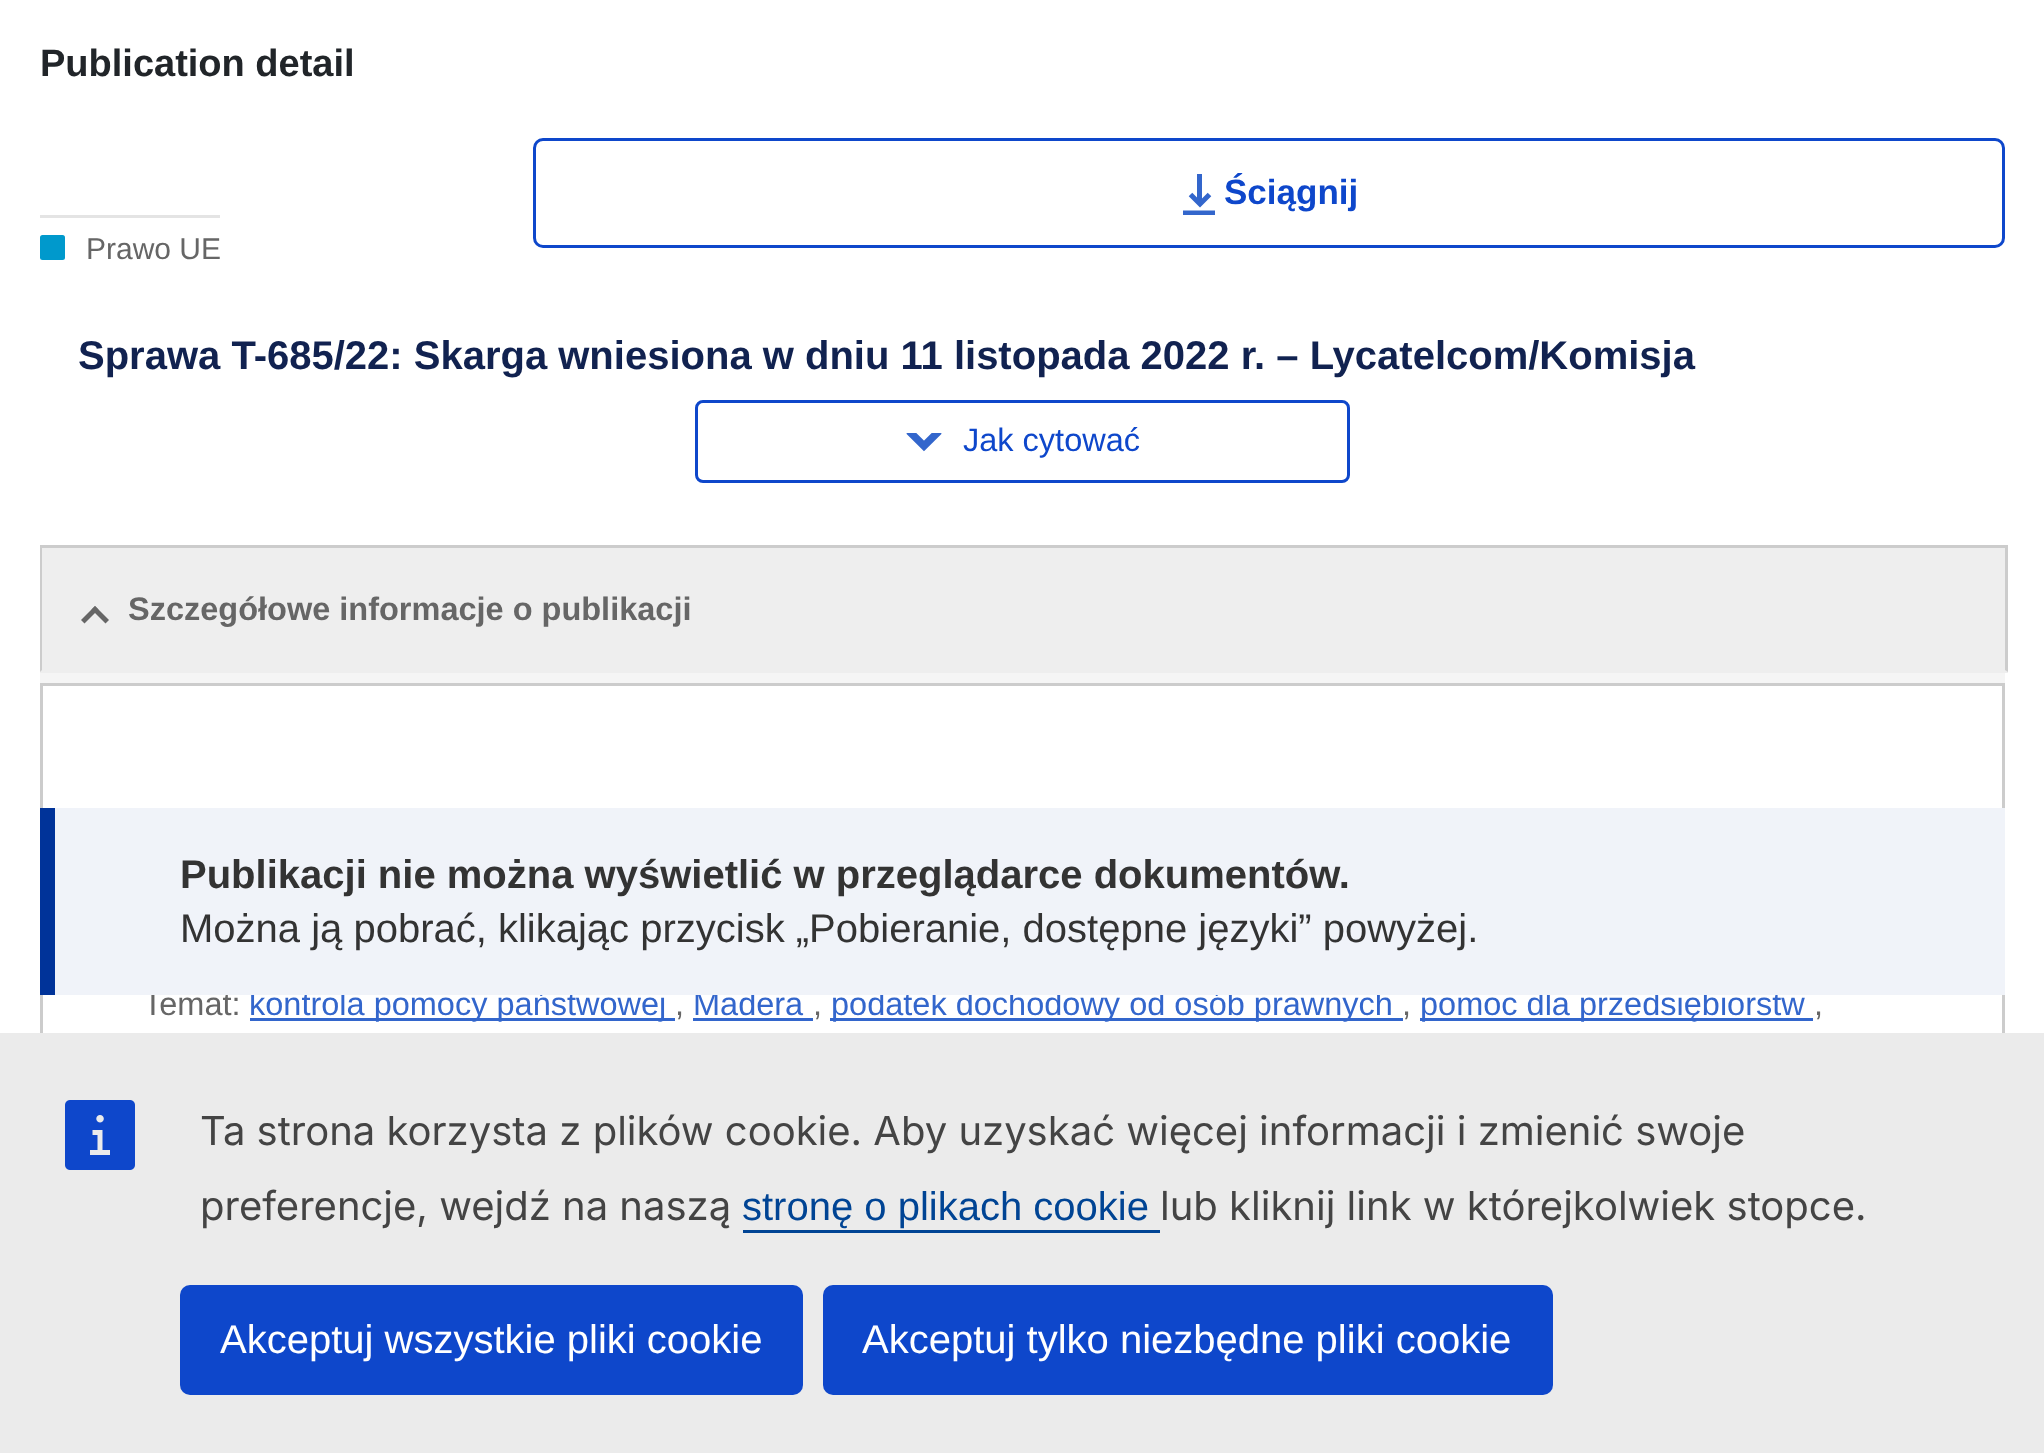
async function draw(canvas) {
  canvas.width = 2044;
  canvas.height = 1453;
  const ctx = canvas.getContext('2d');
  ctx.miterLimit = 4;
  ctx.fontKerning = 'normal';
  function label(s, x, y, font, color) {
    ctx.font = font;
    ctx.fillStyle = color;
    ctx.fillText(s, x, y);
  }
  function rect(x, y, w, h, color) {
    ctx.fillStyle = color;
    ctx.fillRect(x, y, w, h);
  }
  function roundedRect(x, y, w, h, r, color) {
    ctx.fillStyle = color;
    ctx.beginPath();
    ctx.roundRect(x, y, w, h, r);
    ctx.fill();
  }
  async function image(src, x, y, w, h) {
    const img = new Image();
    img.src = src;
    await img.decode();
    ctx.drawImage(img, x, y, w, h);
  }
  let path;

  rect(0, 0, 2044, 1453, '#fff');
  label('Publication detail', 40, 76, 'bold 38px Liberation Sans', '#212529');
  ctx.beginPath();
  ctx.roundRect(534.5, 139.5, 1469, 107, 8.5);
  ctx.strokeStyle = '#0e47cb';
  ctx.lineWidth = 3;
  ctx.stroke();
  ctx.save();
  path = new Path2D('M1177.5 170H1222.5V215H1177.5Z');
  ctx.clip(path);
  path = new Path2D('M1183 213H1215');
  ctx.strokeStyle = '#36c';
  ctx.lineWidth = 5;
  ctx.stroke(path);
  ctx.restore();
  rect(1197, 174, 5, 28, '#36c');
  path = new Path2D('M1190.5 194.5L1200 204L1209.5 194.5');
  ctx.strokeStyle = '#36c';
  ctx.lineWidth = 5;
  ctx.stroke(path);
  label('Ściągnij', 1224, 204, 'bold 35px Liberation Sans', '#0e47cb');
  rect(40, 215, 180, 3, '#e4e4e4');
  roundedRect(40, 235, 25, 25, 2.5, '#09c');
  label('Prawo UE', 86, 259, '30px Liberation Sans', '#666');
  label('Sprawa T-685/22: Skarga wniesiona w dniu 11 listopada 2022 r. – Lycatelcom/Komisja', 78, 369, 'bold 40px Liberation Sans', '#112250');
  ctx.beginPath();
  ctx.roundRect(696.5, 401.5, 652, 80, 6.5);
  ctx.strokeStyle = '#0e47cb';
  ctx.lineWidth = 3;
  ctx.stroke();
  ctx.save();
  ctx.beginPath();
  ctx.rect(905, 433, 38, 20);
  ctx.clip();
  path = new Path2D('M909 431L924 446L939 431');
  ctx.strokeStyle = '#36c';
  ctx.lineWidth = 7.5;
  ctx.stroke(path);
  ctx.restore();
  label('Jak cytować', 963, 451, '32.5px Liberation Sans', '#0e47cb');
  rect(40, 673, 1965, 10, '#f5f5f5');
  rect(40, 548, 1968, 125, '#eee');
  ctx.fillStyle = '#666';
  path = new Path2D('M84.5 623.5L81 620L95 606L98.5 609.5Z');
  ctx.fill(path);
  path = new Path2D('M105.5 623.5L91.5 609.5L95 606L109 620Z');
  ctx.fill(path);
  rect(40, 545, 1968, 3, '#ccc');
  path = new Path2D('M2008 545V672L2005 670V548Z');
  ctx.fill(path);
  path = new Path2D('M40 672V545L42 548V670Z');
  ctx.fill(path);
  label('Szczegółowe informacje o publikacji', 128, 620, 'bold 32.5px Liberation Sans', '#666');
  ctx.strokeStyle = '#ccc';
  ctx.strokeRect(41.5, 684.5, 1962, 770);
  label('Temat:', 143, 1015, '32.5px Liberation Sans', '#666');
  rect(250, 1018, 425, 3, '#36c');
  label('kontrola pomocy państwowej', 249, 1015, '32.5px Liberation Sans', '#36c');
  label(',', 675, 1015, '32.5px Liberation Sans', '#666');
  label('Madera', 693, 1015, '32.5px Liberation Sans', '#36c');
  rect(693, 1018, 120, 3, '#36c');
  label(',', 813, 1015, '32.5px Liberation Sans', '#666');
  rect(830, 1018, 573, 3, '#36c');
  label('podatek dochodowy od osób prawnych', 831, 1015, '32.5px Liberation Sans', '#36c');
  label(',', 1402, 1015, '32.5px Liberation Sans', '#666');
  rect(1420, 1018, 393, 3, '#36c');
  label('pomoc dla przedsiębiorstw', 1420, 1015, '32.5px Liberation Sans', '#36c');
  label(',', 1814, 1015, '32.5px Liberation Sans', '#666');
  rect(55, 808, 1950, 187, '#f0f3f9');
  rect(40, 808, 15, 187, '#039');
  label('Publikacji nie można wyświetlić w przeglądarce dokumentów.', 180, 888, 'bold 40px Liberation Sans', '#333');
  label('Można ją pobrać, klikając przycisk „Pobieranie, dostępne języki” powyżej.', 180, 942, '40px Liberation Sans', '#333');
  rect(0, 1033, 2044, 420, '#ebebeb');
  await image('assets/img1.png', 65, 1100, 70, 70);
  label('Ta strona korzysta z plików cookie. Aby uzyskać więcej informacji i zmienić swoje', 200, 1145, '40px Inter', '#444');
  label('preferencje, wejdź na naszą', 200, 1220, '40px Inter', '#444');
  label('stronę o plikach cookie', 742, 1220, '40px Liberation Sans', '#004494');
  rect(743, 1230, 417, 3, '#004494');
  label('lub kliknij link w którejkolwiek stopce.', 1160, 1220, '40px Inter', '#444');
  roundedRect(180, 1285, 623, 110, 10, '#0e47cb');
  label('Akceptuj wszystkie pliki cookie', 220, 1353, '40px Liberation Sans', '#fff');
  roundedRect(823, 1285, 730, 110, 10, '#0e47cb');
  label('Akceptuj tylko niezbędne pliki cookie', 862, 1353, '40px Liberation Sans', '#fff');
}

draw(document.querySelector('canvas'));
